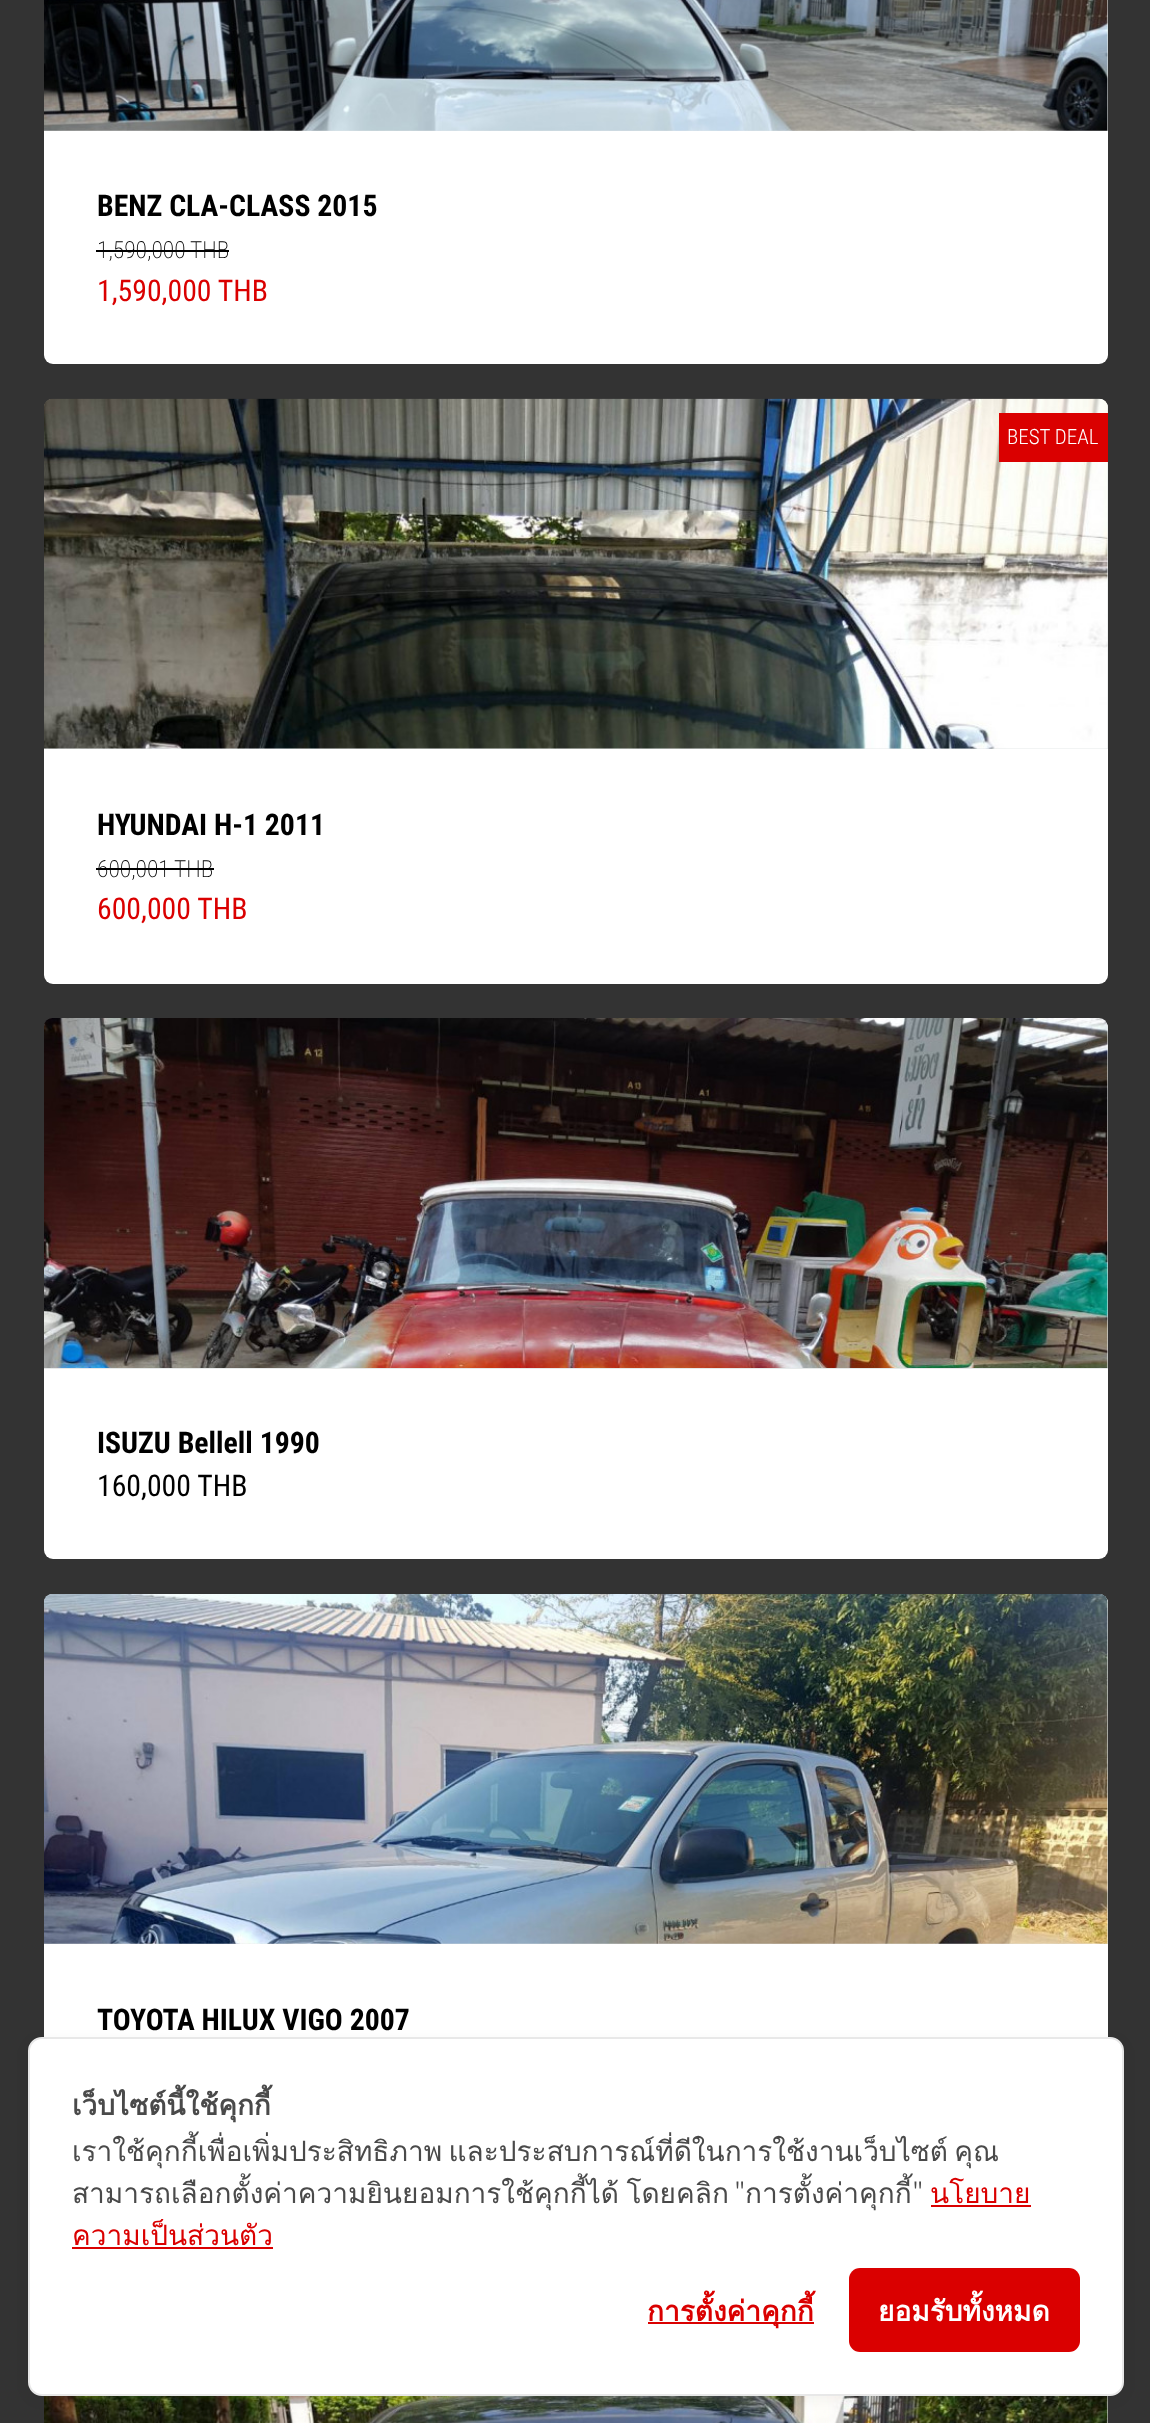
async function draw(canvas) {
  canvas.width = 1150;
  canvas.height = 2423;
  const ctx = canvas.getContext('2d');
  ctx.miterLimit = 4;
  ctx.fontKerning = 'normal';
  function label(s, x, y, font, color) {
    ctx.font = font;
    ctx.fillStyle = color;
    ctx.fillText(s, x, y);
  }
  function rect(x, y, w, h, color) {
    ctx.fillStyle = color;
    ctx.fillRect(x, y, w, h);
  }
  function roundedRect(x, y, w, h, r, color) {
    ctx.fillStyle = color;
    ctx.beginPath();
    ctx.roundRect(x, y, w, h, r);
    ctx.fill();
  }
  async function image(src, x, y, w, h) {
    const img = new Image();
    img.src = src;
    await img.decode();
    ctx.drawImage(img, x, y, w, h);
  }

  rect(0, 0, 1150, 2423, '#333');
  roundedRect(44, -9, 1064, 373, 9, '#fff');
  rect(44, 0, 1064, 131, '#e5e8e8');
  await image('assets/img1.png', 44, 0, 1064, 131);
  label('BENZ CLA-CLASS 2015', 97, 216, 'bold 29.75px Roboto Condensed', '#000');
  label('1,590,000', 97, 258, '200 23.5px Roboto Condensed', '#000');
  rect(96, 250, 93, 2, '#000');
  label('THB', 190, 258, '200 23.5px Roboto Condensed', '#000');
  rect(189, 250, 40, 2, '#000');
  label('1,590,000 THB', 97, 301, '29.75px Roboto Condensed', '#da0000');
  roundedRect(44, 399, 1064, 585, 9, '#fff');
  ctx.fillStyle = '#e5e8e8';
  ctx.beginPath();
  ctx.roundRect(44, 399, 1064, 350, [9, 9, 0, 0]);
  ctx.fill();
  await image('assets/img2.png', 44, 398, 1064, 351);
  rect(999, 413, 109, 49, '#da0000');
  label('BEST DEAL', 1007, 444, '300 21px Roboto Condensed', '#fff');
  label('HYUNDAI H-1 2011', 97, 835, 'bold 29.75px Roboto Condensed', '#000');
  label('600,001', 97, 877, '200 23.5px Roboto Condensed', '#000');
  rect(96, 868, 77, 2, '#000');
  label('THB', 174, 877, '200 23.5px Roboto Condensed', '#000');
  rect(173, 868, 41, 2, '#000');
  label('600,000 THB', 97, 919, '29.75px Roboto Condensed', '#da0000');
  roundedRect(44, 1019, 1064, 540, 9, '#fff');
  ctx.fillStyle = '#e5e8e8';
  ctx.beginPath();
  ctx.roundRect(44, 1019, 1064, 350, [9, 9, 0, 0]);
  ctx.fill();
  await image('assets/img3.png', 44, 1018, 1064, 350);
  label('ISUZU Bellell 1990', 97, 1453, 'bold 29.75px Roboto Condensed', '#000');
  label('160,000 THB', 97, 1496, '29.75px Roboto Condensed', '#000');
  roundedRect(44, 1594, 1064, 543, 9, '#fff');
  ctx.fillStyle = '#e5e8e8';
  ctx.beginPath();
  ctx.roundRect(44, 1594, 1064, 350, [9, 9, 0, 0]);
  ctx.fill();
  await image('assets/img4.png', 44, 1594, 1064, 350);
  label('TOYOTA HILUX VIGO 2007', 97, 2030, 'bold 29.75px Roboto Condensed', '#000');
  rect(1107, 2396, 1, 27, '#e5e8e8');
  await image('assets/img5.png', 44, 2396, 1064, 27);
  ctx.fillStyle = '#0000000d';
  ctx.filter = 'blur(7px)';
  ctx.beginPath();
  ctx.roundRect(28, 2041, 1096, 358, 14);
  ctx.fill();
  ctx.filter = 'none';
  ctx.fillStyle = '#fff';
  ctx.beginPath();
  ctx.roundRect(29, 2038, 1094, 357, 13);
  ctx.fill();
  ctx.strokeStyle = '#e8e8e8';
  ctx.lineWidth = 2;
  ctx.stroke();
  label('เว็บไซต์นี้ใช้คุกกี้', 72, 2115, 'bold 28px Loma', '#4a4a4a');
  ctx.wordSpacing = '-3px';
  label('เราใช้คุกกี้เพื่อเพิ่มประสิทธิภาพ และประสบการณ์ที่ดีในการใช้งานเว็บไซต์ คุณ', 72, 2161, '28px Loma', '#4a4a4a');
  ctx.wordSpacing = '-2px';
  label('สามารถเลือกตั้งค่าความยินยอมการใช้คุกกี้ได้ โดยคลิก', 72, 2203, '28px Loma', '#4a4a4a');
  ctx.wordSpacing = '0px';
  label('"', 734, 2203, '300 28px Noto Sans JP', '#4a4a4a');
  label('การตั้งค่าคุกกี้', 745, 2203, '28px Loma', '#4a4a4a');
  label('"', 912, 2203, '300 28px Noto Sans JP', '#4a4a4a');
  label('นโยบาย', 930, 2203, '28px Loma', '#da0000');
  rect(931, 2205, 100, 2, '#da0000');
  label('ความเป็นส่วนตัว', 72, 2245, '28px Loma', '#da0000');
  rect(72, 2247, 201, 2, '#da0000');
  rect(648, 2322, 166, 2, '#da0000');
  label('การตั้งค่าคุกกี้', 647, 2321, 'bold 28px Loma', '#da0000');
  roundedRect(849, 2268, 231, 84, 11, '#da0000');
  label('ยอมรับทั้งหมด', 878, 2321, 'bold 28px Loma', '#fff');
}

draw(document.querySelector('canvas'));
